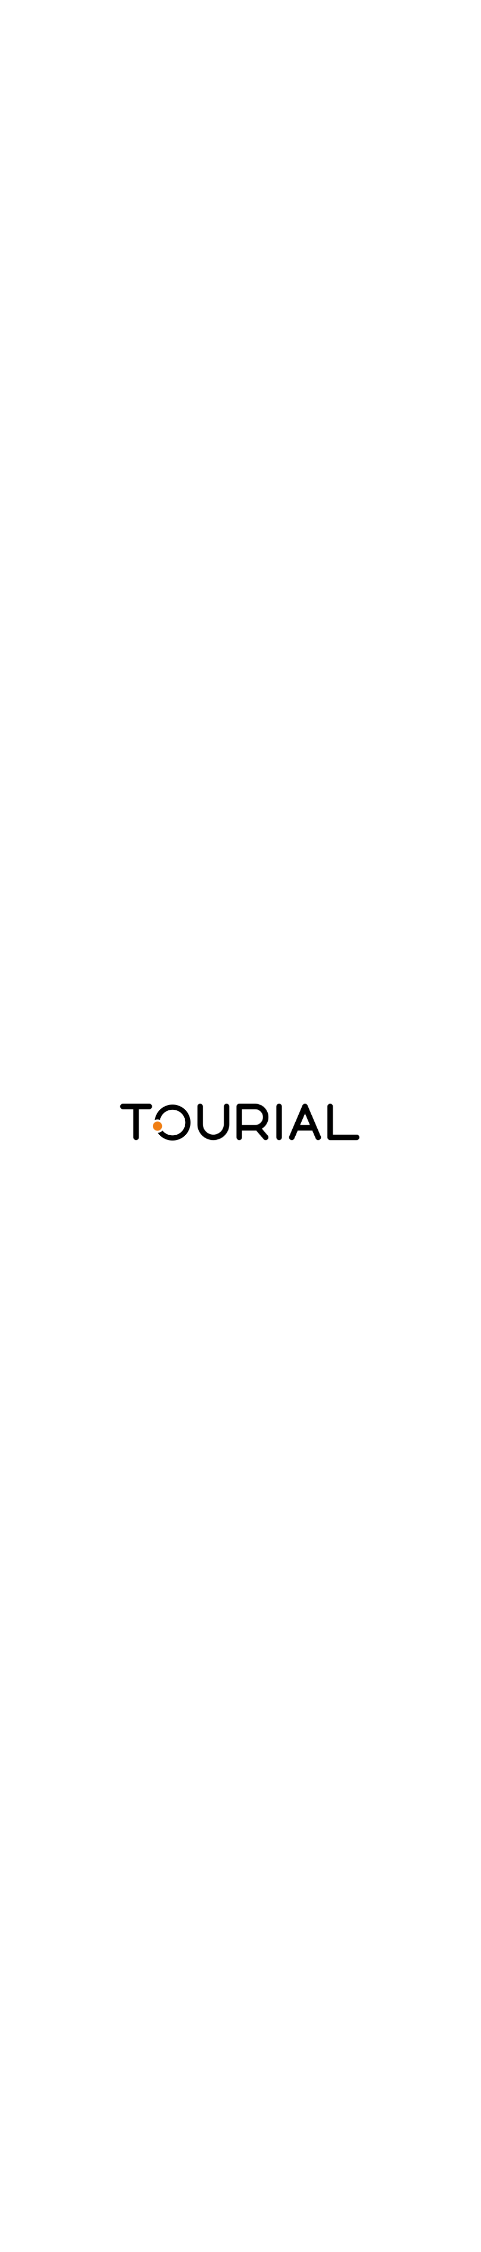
async function draw(canvas) {
  canvas.width = 481;
  canvas.height = 2252;
  const ctx = canvas.getContext('2d');
  ctx.miterLimit = 4;
  ctx.fontKerning = 'normal';
  function rect(x, y, w, h, color) {
    ctx.fillStyle = color;
    ctx.fillRect(x, y, w, h);
  }
  async function image(src, x, y, w, h) {
    const img = new Image();
    img.src = src;
    await img.decode();
    ctx.drawImage(img, x, y, w, h);
  }

  rect(0, 0, 481, 2252, '#fff');
  await image('assets/img1.png', 119, 1103, 241, 38);
  await image('assets/img2.png', 152, 1104, 39, 37);
}

draw(document.querySelector('canvas'));
